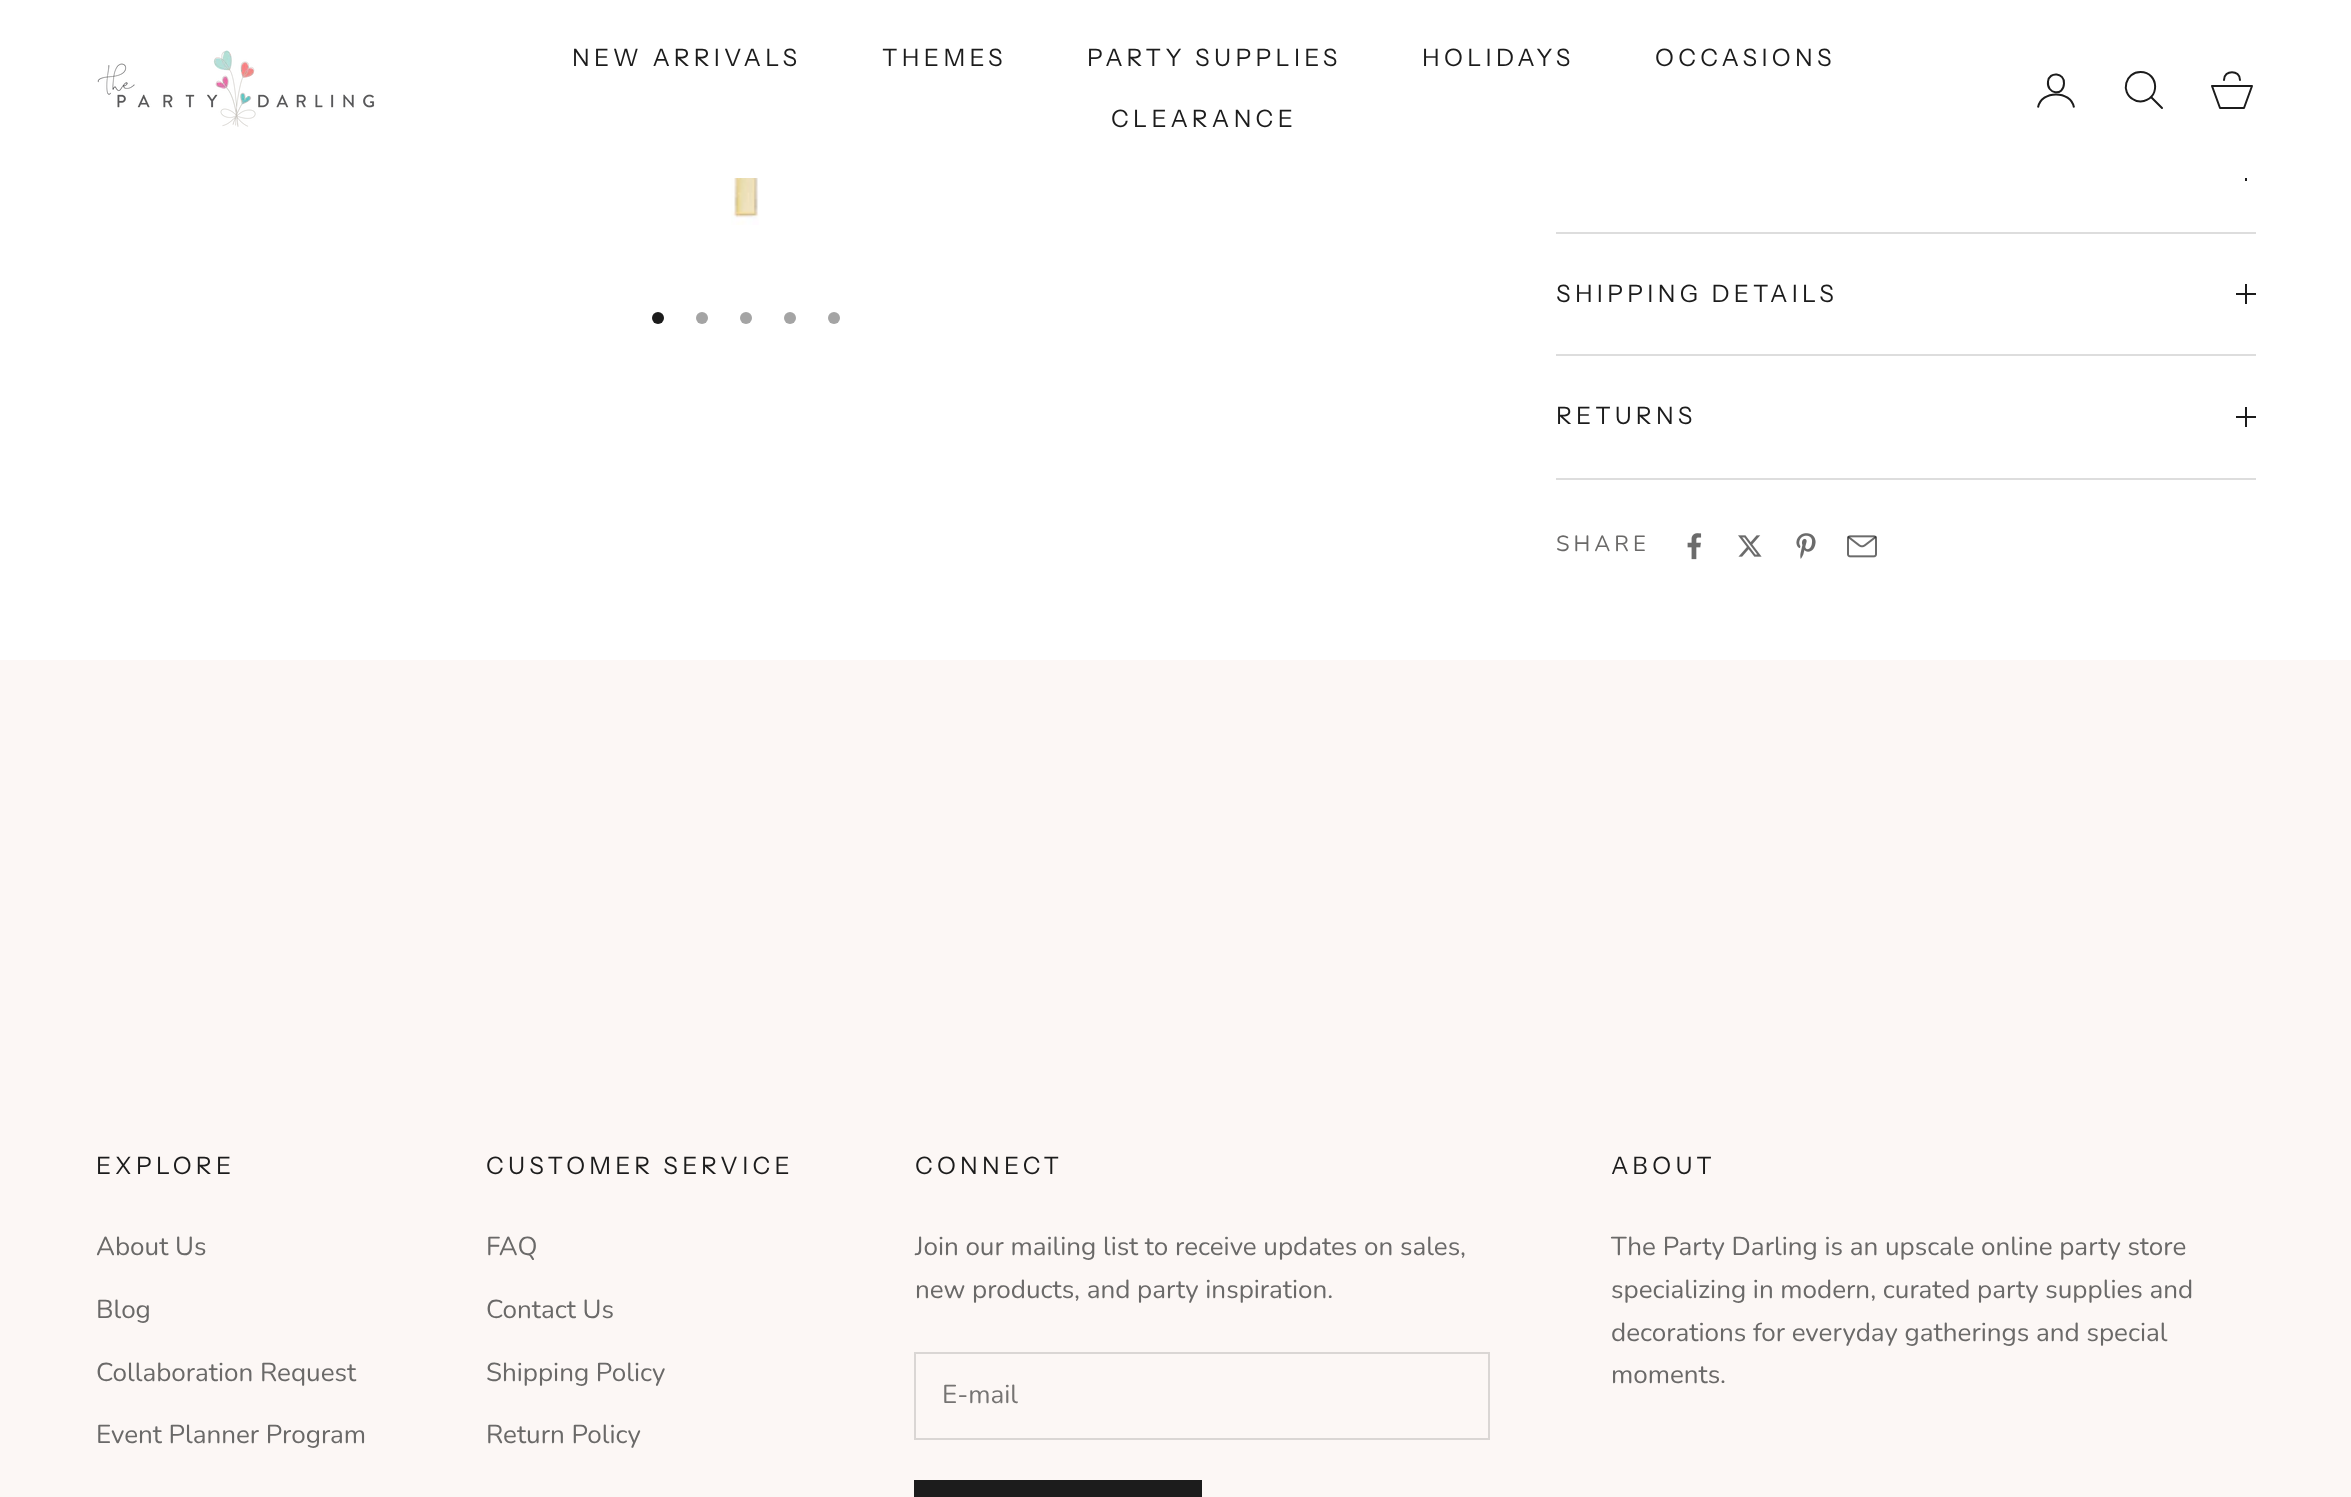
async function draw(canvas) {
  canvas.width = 2351;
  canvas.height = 1497;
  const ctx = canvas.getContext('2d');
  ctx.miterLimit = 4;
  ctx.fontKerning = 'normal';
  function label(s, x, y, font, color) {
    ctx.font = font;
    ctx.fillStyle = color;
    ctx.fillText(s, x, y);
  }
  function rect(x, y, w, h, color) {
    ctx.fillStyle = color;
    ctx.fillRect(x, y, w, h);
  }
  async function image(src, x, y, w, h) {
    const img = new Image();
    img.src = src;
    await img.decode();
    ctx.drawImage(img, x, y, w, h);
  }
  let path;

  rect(0, 0, 2351, 1497, '#fff');
  await image('assets/img1.png', 97, 50, 278, 77);
  ctx.letterSpacing = '4.3px';
  label('NEW ARRIVALS', 572, 66, '24px Instrument Sans', '#1c1c1c');
  label('THEMES', 882, 66, '24px Instrument Sans', '#1c1c1c');
  label('PARTY SUPPLIES', 1087, 66, '24px Instrument Sans', '#1c1c1c');
  label('HOLIDAYS', 1422, 66, '24px Instrument Sans', '#1c1c1c');
  label('OCCASIONS', 1655, 66, '24px Instrument Sans', '#1c1c1c');
  label('CLEARANCE', 1111, 127, '24px Instrument Sans', '#1c1c1c');
  path = new Path2D('M2064 83.5C2063.5 97 2046.5 94 2048 81.5C2049 71 2065 72.5 2064 83.5Z');
  ctx.strokeStyle = '#1c1c1c';
  ctx.lineWidth = 2;
  ctx.lineCap = 'round';
  ctx.lineJoin = 'round';
  ctx.stroke(path);
  path = new Path2D('M2038 107.5C2041 90 2071 90 2074 107.5');
  ctx.lineCap = 'butt';
  ctx.lineJoin = 'miter';
  ctx.stroke(path);
  path = new Path2D('M2140.5 72C2125.5 72 2120 92 2133.5 99.5C2135.5 101 2138 101.5 2140.5 101.5C2160.5 100.5 2159.5 72 2140.5 72Z');
  ctx.stroke(path);
  path = new Path2D('M2151.5 97.5L2162 108');
  ctx.lineCap = 'round';
  ctx.stroke(path);
  path = new Path2D('M2212 86H2252L2244 108H2220ZM2240 80C2240 69.5 2224 69.5 2224 80');
  ctx.lineJoin = 'round';
  ctx.stroke(path);
  await image('assets/img2.png', 731, 178, 28, 47);
  ctx.beginPath();
  ctx.arc(658, 318, 6, 0, 2 * Math.PI);
  ctx.fill();
  ctx.fillStyle = '#a4a4a4';
  ctx.beginPath();
  ctx.arc(702, 318, 6, 0, 2 * Math.PI);
  ctx.fill();
  ctx.beginPath();
  ctx.arc(746, 318, 6, 0, 2 * Math.PI);
  ctx.fill();
  ctx.beginPath();
  ctx.arc(790, 318, 6, 0, 2 * Math.PI);
  ctx.fill();
  ctx.beginPath();
  ctx.arc(834, 318, 6, 0, 2 * Math.PI);
  ctx.fill();
  rect(1556, 232, 700, 2, '#ddd');
  rect(2245, 178, 2, 3, '#1c1c1c');
  rect(1556, 354, 700, 2, '#ddd');
  label('SHIPPING DETAILS', 1556, 302, '24px Instrument Sans', '#1c1c1c');
  rect(2245, 284, 2, 20, '#1c1c1c');
  rect(2236, 293, 20, 2, '#1c1c1c');
  rect(1556, 478, 700, 2, '#ddd');
  label('RETURNS', 1556, 424, '24px Instrument Sans', '#1c1c1c');
  rect(2245, 407, 2, 20, '#1c1c1c');
  rect(2236, 416, 20, 2, '#1c1c1c');
  ctx.letterSpacing = '4px';
  label('SHARE', 1556, 551, '22px Nunito', '#6a6968');
  await image('assets/img3.png', 1687, 533, 15, 27);
  await image('assets/img4.png', 1738, 535, 24, 22);
  await image('assets/img5.png', 1796, 533, 20, 26);
  await image('assets/img6.png', 1847, 535, 30, 23);
  rect(0, 660, 2351, 837, '#fcf7f5');
  ctx.letterSpacing = '4.3px';
  label('EXPLORE', 96, 1174, '24px Instrument Sans', '#1c1c1c');
  ctx.letterSpacing = '0px';
  label('About Us', 96, 1255, '26px Nunito', '#6a6968');
  label('Blog', 96, 1318, '26px Nunito', '#6a6968');
  label('Collaboration Request', 96, 1381, '26px Nunito', '#6a6968');
  label('Event Planner Program', 96, 1443, '26px Nunito', '#6a6968');
  ctx.letterSpacing = '4.3px';
  label('CUSTOMER SERVICE', 486, 1174, '24px Instrument Sans', '#1c1c1c');
  ctx.letterSpacing = '0px';
  label('FAQ', 486, 1255, '26px Nunito', '#6a6968');
  label('Contact Us', 486, 1318, '26px Nunito', '#6a6968');
  label('Shipping Policy', 486, 1381, '26px Nunito', '#6a6968');
  label('Return Policy', 486, 1443, '26px Nunito', '#6a6968');
  ctx.letterSpacing = '4.3px';
  label('CONNECT', 915, 1174, '24px Instrument Sans', '#1c1c1c');
  ctx.letterSpacing = '0px';
  label('Join our mailing list to receive updates on sales,', 915, 1255, '26px Nunito', '#6a6968');
  label('new products, and party inspiration.', 915, 1298, '26px Nunito', '#6a6968');
  ctx.strokeStyle = '#dad6d4';
  ctx.lineJoin = 'miter';
  ctx.strokeRect(915, 1353, 574, 86);
  label('E-mail', 942, 1403, '26px Nunito', '#767473');
  ctx.fillStyle = '#1c1c1c';
  ctx.beginPath();
  ctx.rect(915, 1481, 286, 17);
  ctx.fill();
  ctx.strokeStyle = '#1c1c1c';
  ctx.stroke();
  ctx.letterSpacing = '4.3px';
  label('ABOUT', 1611, 1174, '24px Instrument Sans', '#1c1c1c');
  ctx.letterSpacing = '0px';
  label('The Party Darling is an upscale online party store', 1611, 1255, '26px Nunito', '#6a6968');
  label('specializing in modern, curated party supplies and', 1611, 1298, '26px Nunito', '#6a6968');
  label('decorations for everyday gatherings and special', 1611, 1341, '26px Nunito', '#6a6968');
  label('moments.', 1611, 1383, '26px Nunito', '#6a6968');
}

draw(document.querySelector('canvas'));
